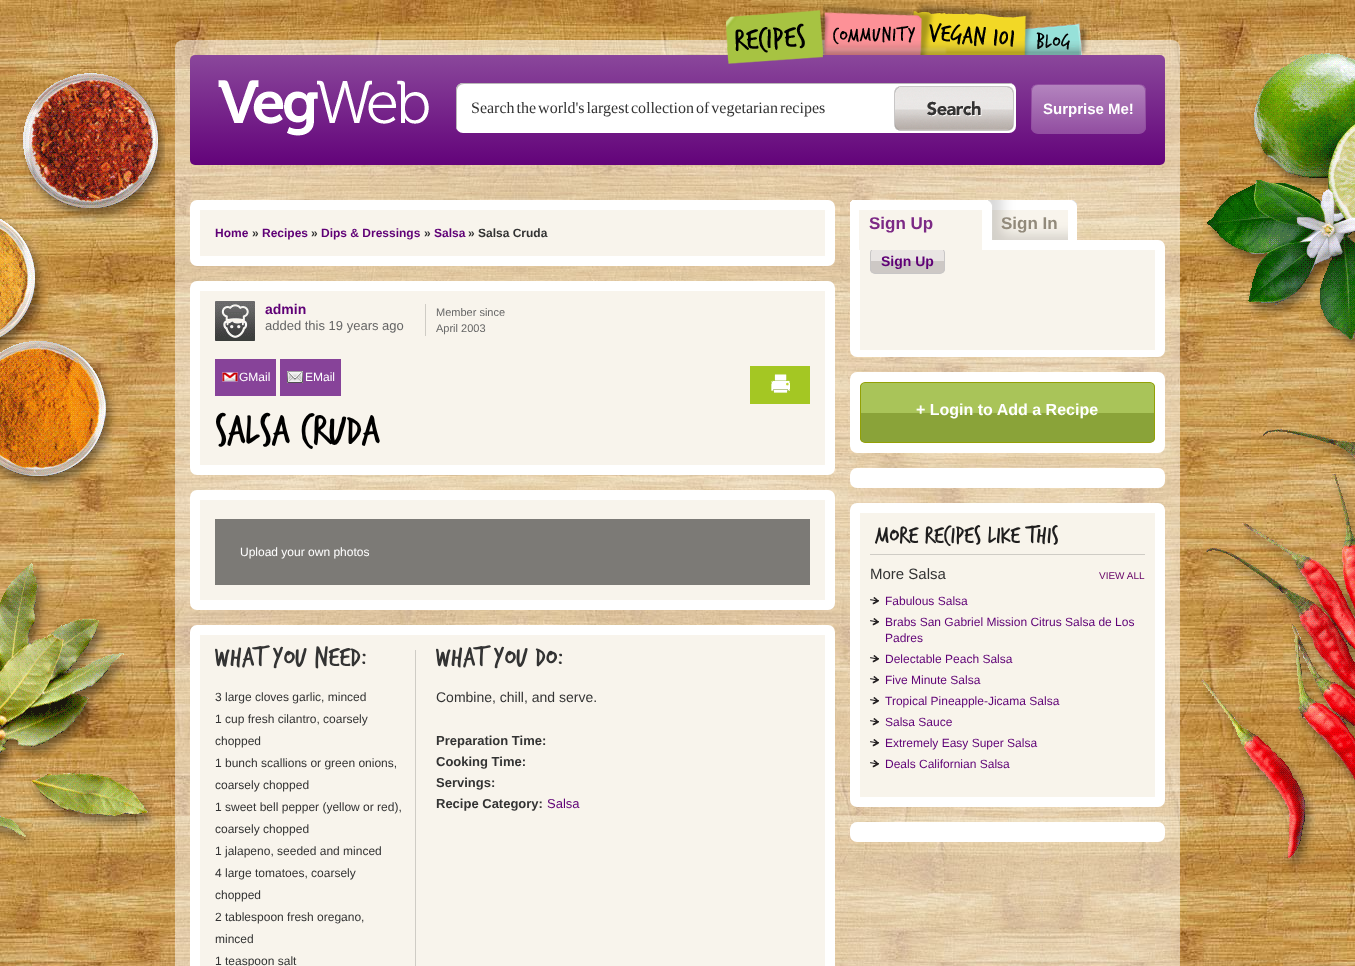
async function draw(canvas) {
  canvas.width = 1355;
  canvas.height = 966;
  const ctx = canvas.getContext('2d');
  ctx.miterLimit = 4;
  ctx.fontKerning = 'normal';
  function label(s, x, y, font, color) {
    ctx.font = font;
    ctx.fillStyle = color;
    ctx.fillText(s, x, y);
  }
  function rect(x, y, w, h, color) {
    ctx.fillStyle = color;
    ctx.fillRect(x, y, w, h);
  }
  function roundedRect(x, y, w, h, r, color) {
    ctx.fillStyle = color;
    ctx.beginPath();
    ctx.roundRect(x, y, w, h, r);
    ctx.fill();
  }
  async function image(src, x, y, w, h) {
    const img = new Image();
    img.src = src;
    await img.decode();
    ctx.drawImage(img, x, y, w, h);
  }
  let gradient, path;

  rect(0, 0, 1355, 966, '#fff');
  await image('assets/img1.png', 0, 0, 1355, 966);
  await image('assets/img2.png', 0, 73, 165, 417);
  await image('assets/img3.png', 175, 40, 1005, 926);
  gradient = ctx.createLinearGradient(190, 55, 190, 165);
  gradient.addColorStop(0, '#8a479b');
  gradient.addColorStop(1, '#63037a');
  ctx.fillStyle = gradient;
  ctx.beginPath();
  ctx.roundRect(190, 55, 975, 110, 5);
  ctx.fill();
  await image('assets/img4.png', 726, 3, 363, 61);
  await image('assets/img5.png', 218, 80, 211, 56);
  roundedRect(456, 83, 560, 50, 7, '#fff');
  ctx.fillStyle = '#b9b8b8';
  path = new Path2D('M464 84H1010C1012 84 1013 84 1014 85C1013 84 1011 83 1009 83H463C459 83 456 86 456 90V126C456 128 457 130 458 131C457 130 457 129 457 127V91C457 87 460 84 464 84Z');
  ctx.fill(path);
  ctx.wordSpacing = '-2px';
  label('Search the world\'s largest collection of vegetarian recipes', 471, 113, '16px Liberation Serif', '#333');
  await image('assets/img6.png', 894, 86, 120, 45);
  ctx.save();
  ctx.beginPath();
  ctx.roundRect(1031, 84, 115, 50, 7);
  ctx.clip();
  gradient = ctx.createLinearGradient(1032, 85, 1032, 133);
  gradient.addColorStop(0, '#b384be');
  gradient.addColorStop(1, '#924ea1');
  ctx.fillStyle = gradient;
  ctx.fillRect(1031, 85, 115, 48);
  ctx.restore();
  ctx.beginPath();
  ctx.roundRect(1031.5, 84.5, 114, 49, 6.5);
  ctx.strokeStyle = '#924ea1';
  ctx.stroke();
  ctx.wordSpacing = '0px';
  label('Surprise Me!', 1043, 114, 'bold 15px Liberation Sans', '#fff');
  roundedRect(190, 200, 645, 66, 7, '#fff');
  rect(200, 210, 625, 46, '#f8f4ec');
  label('Home', 215, 237, 'bold 12px Liberation Sans', '#5f0076');
  label('»', 252, 237, 'bold 12px Liberation Sans', '#333');
  label('Recipes', 262, 237, 'bold 12px Liberation Sans', '#5f0076');
  label('»', 311, 237, 'bold 12px Liberation Sans', '#333');
  label('Dips & Dressings', 321, 237, 'bold 12px Liberation Sans', '#5f0076');
  label('»', 424, 237, 'bold 12px Liberation Sans', '#333');
  label('Salsa', 434, 237, 'bold 12px Liberation Sans', '#5f0076');
  label('» Salsa Cruda', 468, 237, 'bold 12px Liberation Sans', '#333');
  roundedRect(190, 281, 645, 194, 7, '#fff');
  rect(200, 291, 625, 174, '#f8f4ec');
  await image('assets/img7.png', 215, 301, 40, 40);
  label('admin', 265, 314, 'bold 14px Liberation Sans', '#5f0076');
  rect(425, 304, 1, 32, '#cfccc5');
  label('Member since', 436, 316, '11px Liberation Sans', '#666');
  label('April 2003', 436, 332, '11px Liberation Sans', '#666');
  label('added this 19 years ago', 265, 330, '13px Liberation Sans', '#666');
  rect(215, 359, 61, 37, '#874399');
  await image('assets/img8.png', 222, 372, 16, 10);
  label('GMail', 239, 381, '12px Liberation Sans', '#fff');
  rect(280, 359, 61, 37, '#874399');
  await image('assets/img9.png', 287, 371, 16, 12);
  label('EMail', 305, 381, '12px Liberation Sans', '#fff');
  rect(750, 366, 60, 38, '#a4c723');
  await image('assets/img10.png', 771, 374, 19, 19);
  label('SALSA CRUDA', 215, 442, '45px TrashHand', '#000');
  roundedRect(190, 490, 645, 120, 7, '#fff');
  rect(200, 500, 625, 100, '#f8f4ec');
  rect(215, 519, 595, 66, '#7c7a76');
  label('Upload your own photos', 240, 556, '12px Liberation Sans', '#fff');
  roundedRect(190, 625, 645, 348, 7, '#fff');
  rect(200, 635, 625, 331, '#f8f4ec');
  label('What you need:', 215, 665, '30px TrashHand', '#333');
  label('3 large cloves garlic, minced', 215, 701, '12px Liberation Sans', '#333');
  label('1 cup fresh cilantro, coarsely', 215, 723, '12px Liberation Sans', '#333');
  label('chopped', 215, 745, '12px Liberation Sans', '#333');
  label('1 bunch scallions or green onions,', 215, 767, '12px Liberation Sans', '#333');
  label('coarsely chopped', 215, 789, '12px Liberation Sans', '#333');
  label('1 sweet bell pepper (yellow or red),', 215, 811, '12px Liberation Sans', '#333');
  label('coarsely chopped', 215, 833, '12px Liberation Sans', '#333');
  label('1 jalapeno, seeded and minced', 215, 855, '12px Liberation Sans', '#333');
  label('4 large tomatoes, coarsely', 215, 877, '12px Liberation Sans', '#333');
  label('chopped', 215, 899, '12px Liberation Sans', '#333');
  label('2 tablespoon fresh oregano,', 215, 921, '12px Liberation Sans', '#333');
  label('minced', 215, 943, '12px Liberation Sans', '#333');
  label('1 teaspoon salt', 215, 965, '12px Liberation Sans', '#333');
  rect(415, 650, 1, 316, '#cfccc5');
  label('What you do:', 436, 665, '30px TrashHand', '#333');
  label('Combine, chill, and serve.', 436, 702, '14px Liberation Sans', '#333');
  label('Preparation Time:', 436, 745, 'bold 13px Liberation Sans', '#333');
  label('Cooking Time:', 436, 766, 'bold 13px Liberation Sans', '#333');
  label('Servings:', 436, 787, 'bold 13px Liberation Sans', '#333');
  label('Recipe Category:', 436, 808, 'bold 13px Liberation Sans', '#333');
  label('Salsa', 547, 808, '13px Liberation Sans', '#5f0076');
  ctx.fillStyle = '#fff';
  ctx.beginPath();
  ctx.roundRect(850, 240, 315, 117, [0, 7, 7, 7]);
  ctx.fill();
  rect(860, 250, 295, 100, '#f8f4ec');
  ctx.save();
  ctx.beginPath();
  ctx.roundRect(870, 248, 75, 26, 5);
  ctx.clip();
  rect(870, 250, 75, 11, '#e9e5e3');
  rect(870, 261, 75, 12, '#cdc8c5');
  ctx.restore();
  ctx.beginPath();
  ctx.roundRect(870.5, 248.5, 74, 25, 4.5);
  ctx.strokeStyle = '#c8c6c6';
  ctx.stroke();
  await image('assets/img11.png', 850, 200, 133, 50);
  label('Sign Up', 869, 229, 'bold 17px Liberation Sans', '#7c2985');
  await image('assets/img12.png', 1068, 200, 9, 40);
  await image('assets/img13.png', 982, 200, 86, 50);
  label('Sign In', 1001, 229, 'bold 17px Liberation Sans', '#928a7b');
  label('Sign Up', 881, 266, 'bold 14px Liberation Sans', '#5f0076');
  roundedRect(850, 372, 315, 81, 7, '#fff');
  ctx.save();
  ctx.beginPath();
  ctx.roundRect(860, 382, 295, 61, 5);
  ctx.clip();
  rect(860, 383, 295, 30, '#a9c459');
  rect(860, 413, 295, 29, '#8aa339');
  ctx.restore();
  ctx.beginPath();
  ctx.roundRect(860.5, 382.5, 294, 60, 4.5);
  ctx.strokeStyle = '#93a006';
  ctx.stroke();
  label('+ Login to Add a Recipe', 916, 415, 'bold 16px Liberation Sans', '#fff');
  roundedRect(850, 468, 315, 20, 7, '#fff');
  roundedRect(850, 503, 315, 304, 7, '#fff');
  rect(860, 513, 295, 284, '#f8f4eb');
  ctx.letterSpacing = '0.1px';
  label('More recipes like this', 875, 542, '26px TrashHand', '#1f1e1e');
  rect(870, 554, 275, 1, '#cfccc5');
  ctx.letterSpacing = '0px';
  label('More Salsa', 870, 579, '15px Liberation Sans', '#333');
  label('VIEW ALL', 1099, 579, '10px Liberation Sans', '#606');
  await image('assets/img14.png', 870, 597, 9, 8);
  label('Fabulous Salsa', 885, 605, '12px Liberation Sans', '#5f0076');
  await image('assets/img14.png', 870, 618, 9, 8);
  label('Brabs San Gabriel Mission Citrus Salsa de Los', 885, 626, '12px Liberation Sans', '#5f0076');
  label('Padres', 885, 642, '12px Liberation Sans', '#5f0076');
  await image('assets/img14.png', 870, 655, 9, 8);
  label('Delectable Peach Salsa', 885, 663, '12px Liberation Sans', '#5f0076');
  await image('assets/img14.png', 870, 676, 9, 8);
  label('Five Minute Salsa', 885, 684, '12px Liberation Sans', '#5f0076');
  await image('assets/img14.png', 870, 697, 9, 8);
  label('Tropical Pineapple-Jicama Salsa', 885, 705, '12px Liberation Sans', '#5f0076');
  await image('assets/img14.png', 870, 718, 9, 8);
  label('Salsa Sauce', 885, 726, '12px Liberation Sans', '#5f0076');
  await image('assets/img14.png', 870, 739, 9, 8);
  label('Extremely Easy Super Salsa', 885, 747, '12px Liberation Sans', '#5f0076');
  await image('assets/img14.png', 870, 760, 9, 8);
  label('Deals Californian Salsa', 885, 768, '12px Liberation Sans', '#5f0076');
  roundedRect(850, 822, 315, 20, 7, '#fff');
  await image('assets/img15.png', 1206, 53, 149, 297);
  await image('assets/img16.png', 0, 563, 156, 285);
  await image('assets/img17.png', 1201, 429, 154, 440);
}

draw(document.querySelector('canvas'));
